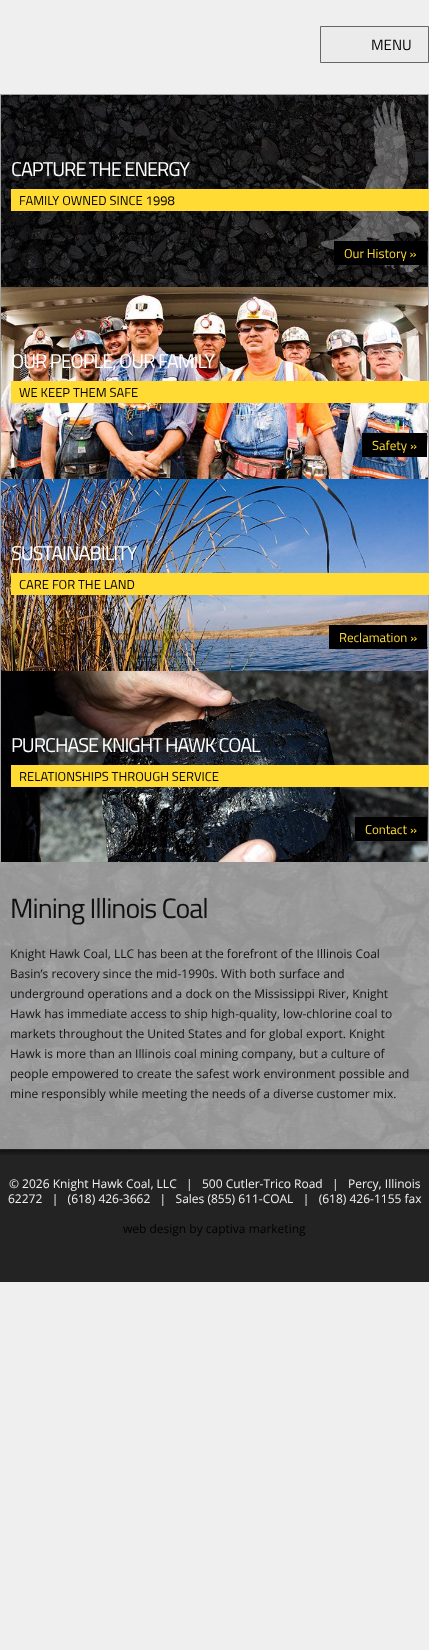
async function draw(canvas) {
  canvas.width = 429;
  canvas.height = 1650;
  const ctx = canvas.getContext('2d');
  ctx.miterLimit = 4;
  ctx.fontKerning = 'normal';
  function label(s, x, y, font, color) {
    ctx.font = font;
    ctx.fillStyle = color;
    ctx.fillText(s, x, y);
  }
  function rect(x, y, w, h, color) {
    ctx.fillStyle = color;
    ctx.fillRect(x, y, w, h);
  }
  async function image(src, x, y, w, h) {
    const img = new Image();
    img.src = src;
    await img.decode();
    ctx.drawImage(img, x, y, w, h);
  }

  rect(0, 0, 429, 1650, '#efefef');
  ctx.fillStyle = '#ecebeb';
  ctx.beginPath();
  ctx.rect(320.5, 26.5, 108, 36);
  ctx.fill();
  ctx.strokeStyle = '#666';
  ctx.stroke();
  label('MENU', 371, 50, '15px Titillium Web', '#000');
  ctx.strokeStyle = '#a4a4a4';
  ctx.strokeRect(0.5, 94.5, 428, 191);
  ctx.strokeRect(0.5, 286.5, 428, 191);
  await image('assets/img1.png', 1, 95, 427, 192);
  ctx.letterSpacing = '-1px';
  label('CAPTURE THE ENERGY', 11, 176, '20px Titillium Web', '#fff');
  rect(11, 189, 418, 22, '#ffdb33');
  ctx.letterSpacing = '0px';
  label('FAMILY OWNED SINCE 1998', 19, 205, '13px Titillium Web', '#000');
  rect(334, 241, 93, 24, '#000');
  label('Our History »', 344, 258, '13px Titillium Web', '#ffdb33');
  ctx.strokeRect(0.5, 478.5, 428, 191);
  await image('assets/img2.png', 1, 287, 427, 192);
  ctx.letterSpacing = '-1px';
  label('OUR PEOPLE, OUR FAMILY', 11, 368, '20px Titillium Web', '#fff');
  rect(11, 381, 418, 22, '#ffdb33');
  ctx.letterSpacing = '0px';
  label('WE KEEP THEM SAFE', 19, 397, '13px Titillium Web', '#000');
  rect(362, 433, 65, 24, '#000');
  label('Safety »', 372, 450, '13px Titillium Web', '#ffdb33');
  ctx.strokeRect(0.5, 670.5, 428, 191);
  await image('assets/img3.png', 1, 479, 427, 192);
  ctx.letterSpacing = '-1px';
  label('SUSTAINABILITY', 11, 560, '20px Titillium Web', '#fff');
  rect(11, 573, 418, 22, '#ffdb33');
  ctx.letterSpacing = '0px';
  label('CARE FOR THE LAND', 19, 589, '13px Titillium Web', '#000');
  rect(329, 625, 98, 24, '#000');
  label('Reclamation »', 339, 642, '13px Titillium Web', '#ffdb33');
  await image('assets/img4.png', 1, 671, 427, 191);
  ctx.letterSpacing = '-1px';
  label('PURCHASE KNIGHT HAWK COAL', 11, 752, '20px Titillium Web', '#fff');
  rect(11, 765, 418, 22, '#ffdb33');
  ctx.letterSpacing = '0px';
  label('RELATIONSHIPS THROUGH SERVICE', 19, 781, '13px Titillium Web', '#000');
  rect(355, 817, 72, 24, '#000');
  label('Contact »', 365, 834, '13px Titillium Web', '#ffdb33');
  await image('assets/img5.png', 0, 862, 429, 287);
  ctx.letterSpacing = '-1px';
  label('Mining Illinois Coal', 10, 918, '28px Titillium Web', '#111');
  ctx.letterSpacing = '0px';
  label('Knight Hawk Coal, LLC has been at the forefront of the Illinois Coal', 10, 958, '12px Open Sans', '#111');
  label('Basin’s recovery since the mid-1990s. With both surface and', 10, 978, '12px Open Sans', '#111');
  label('underground operations and a dock on the Mississippi River, Knight', 10, 998, '12px Open Sans', '#111');
  label('Hawk has immediate access to ship high-quality, low-chlorine coal to', 10, 1018, '12px Open Sans', '#111');
  label('markets throughout the United States and for global export. Knight', 10, 1038, '12px Open Sans', '#111');
  label('Hawk is more than an Illinois coal mining company, but a culture of', 10, 1058, '12px Open Sans', '#111');
  label('people empowered to create the safest work environment possible and', 10, 1078, '12px Open Sans', '#111');
  label('mine responsibly while meeting the needs of a diverse customer mix.', 10, 1098, '12px Open Sans', '#111');
  rect(0, 1149, 429, 133, '#232323');
  await image('assets/img6.png', 0, 1150, 429, 5);
  label('© 2026 Knight Hawk Coal, LLC   |   500 Cutler-Trico Road   |   Percy, Illinois', 9, 1188, '12px Open Sans', '#f1f1f1');
  label('62272   |   (618) 426-3662   |   Sales (855) 611-COAL   |   (618) 426-1155 fax', 8, 1203, '12px Open Sans', '#f1f1f1');
  label('web design by captiva marketing', 123, 1233, '12px Open Sans', '#000');
}

draw(document.querySelector('canvas'));
